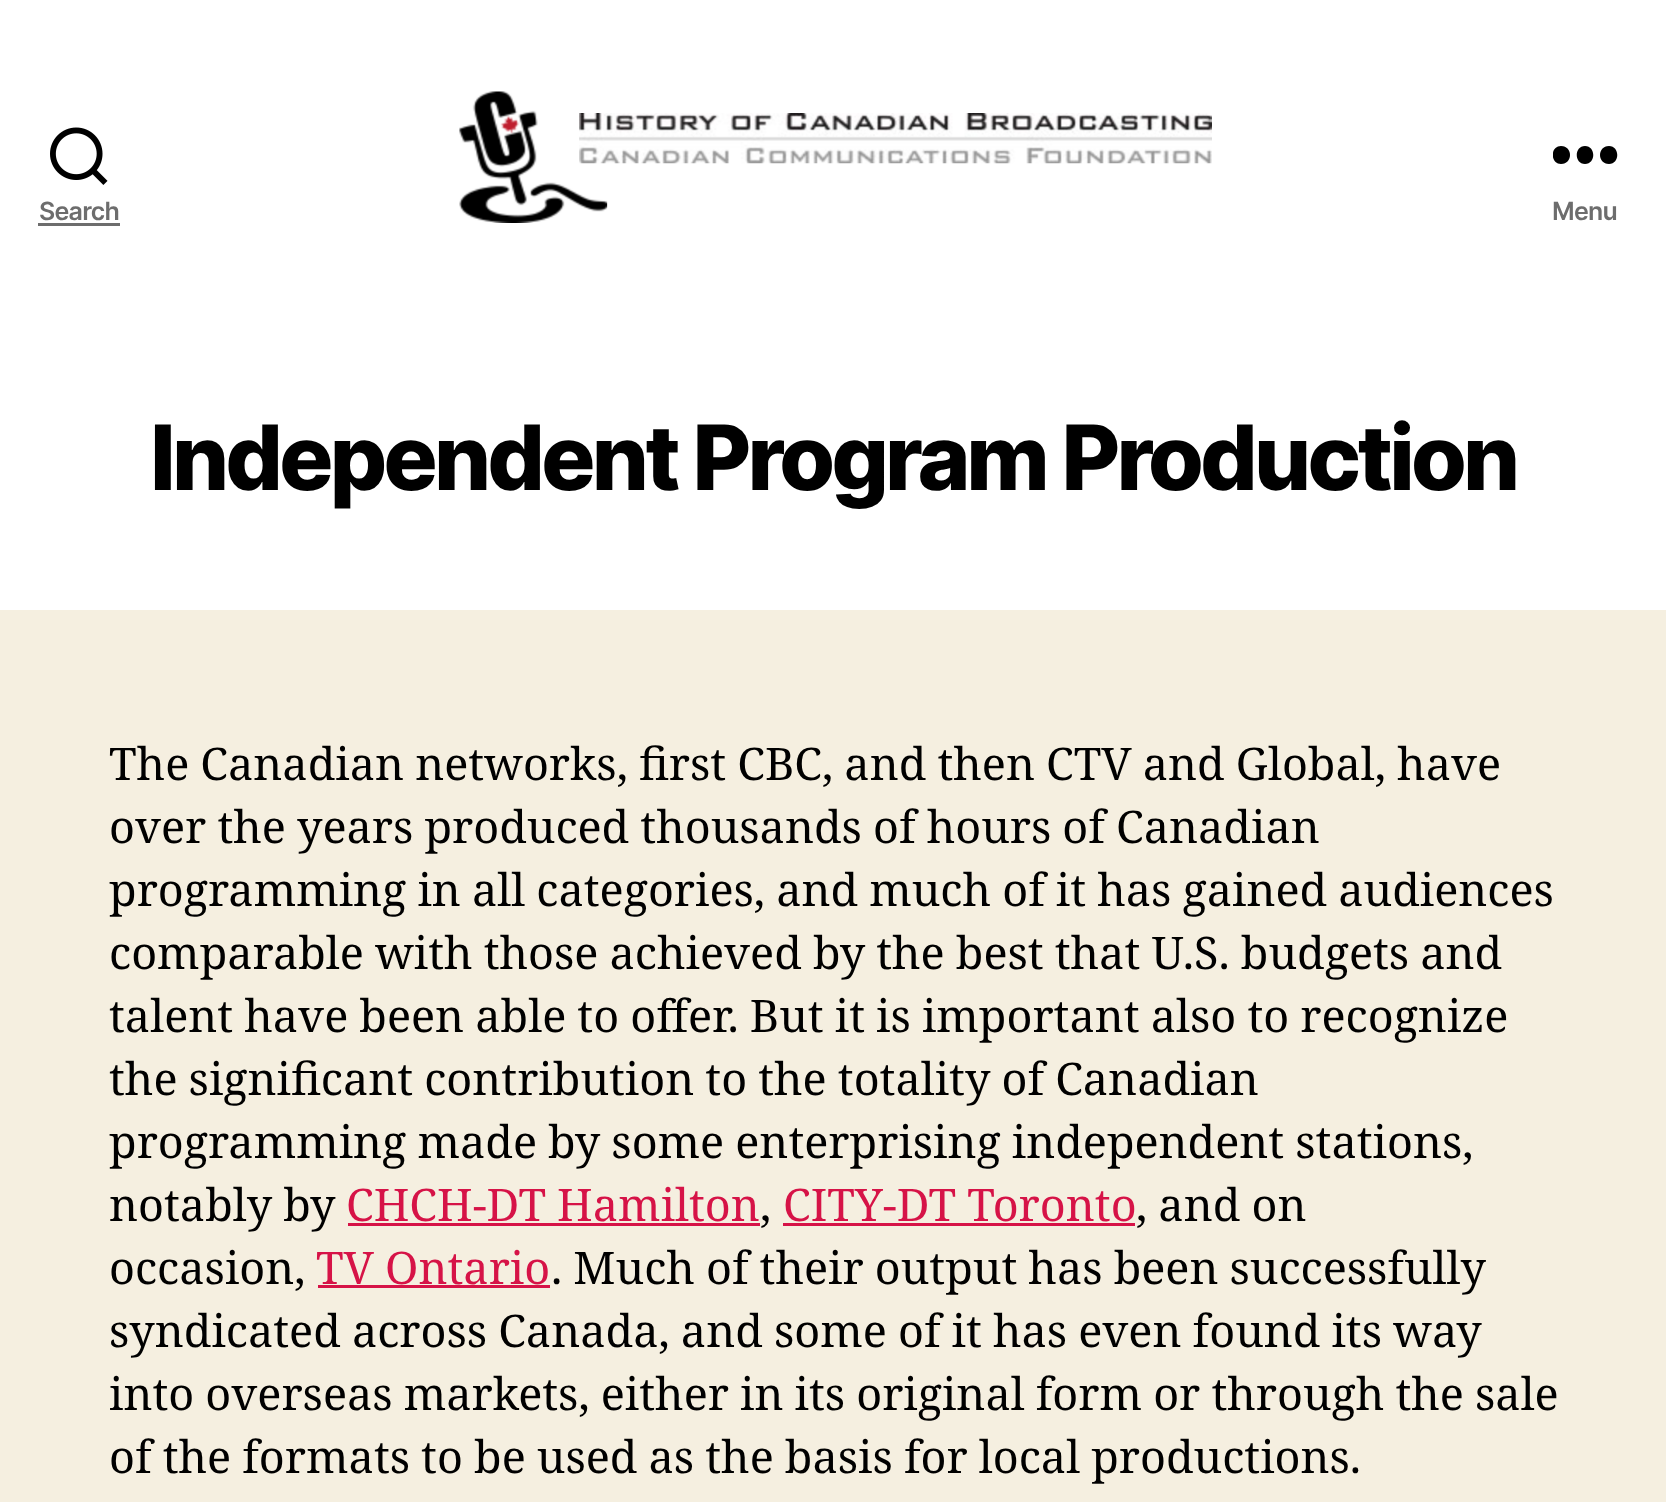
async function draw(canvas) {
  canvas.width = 1666;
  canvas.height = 1502;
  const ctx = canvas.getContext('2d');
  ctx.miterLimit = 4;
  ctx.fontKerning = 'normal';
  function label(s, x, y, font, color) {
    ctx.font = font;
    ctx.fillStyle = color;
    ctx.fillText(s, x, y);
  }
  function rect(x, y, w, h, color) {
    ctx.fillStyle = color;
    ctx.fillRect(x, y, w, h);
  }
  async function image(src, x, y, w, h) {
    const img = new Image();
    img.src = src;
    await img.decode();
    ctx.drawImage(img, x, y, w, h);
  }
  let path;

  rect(0, 0, 1666, 1502, '#f5efe0');
  rect(0, 0, 1666, 610, '#fff');
  await image('assets/img1.png', 50, 127, 58, 58);
  ctx.letterSpacing = '-0.75px';
  label('Search', 39, 220, '600 25px Inter', '#6d6d6d');
  rect(38, 223, 82, 3, '#6d6d6d');
  await image('assets/img2.png', 459, 91, 753, 132);
  ctx.save();
  ctx.beginPath();
  ctx.rect(1553, 145, 65, 20);
  ctx.clip();
  ctx.fillStyle = '#000';
  path = new Path2D('M1561 164C1550 164 1550 146 1561 146C1573 146 1573 164 1561 164ZM1585 164C1574 164 1574 146 1585 146C1596 146 1596 164 1585 164ZM1609 164C1597 164 1597 146 1609 146C1620 146 1620 164 1609 164Z');
  ctx.fill(path, 'evenodd');
  ctx.restore();
  label('Menu', 1552, 220, '600 25px Inter', '#6d6d6d');
  ctx.letterSpacing = '-3.75px';
  label('Independent Program Production', 150, 490, '800 90px Inter', '#000');
  ctx.letterSpacing = '0px';
  ctx.wordSpacing = '-0.6px';
  label('The Canadian networks, first CBC, and then CTV and Global, have', 109, 780, '45px Noto Serif', '#000');
  label('over the years produced thousands of hours of Canadian', 109, 843, '45px Noto Serif', '#000');
  label('programming in all categories, and much of it has gained audiences', 109, 906, '45px Noto Serif', '#000');
  label('comparable with those achieved by the best that U.S. budgets and', 109, 969, '45px Noto Serif', '#000');
  label('talent have been able to offer. But it is important also to recognize', 109, 1032, '45px Noto Serif', '#000');
  label('the significant contribution to the totality of Canadian', 109, 1095, '45px Noto Serif', '#000');
  label('programming made by some enterprising independent stations,', 109, 1158, '45px Noto Serif', '#000');
  label('notably by', 109, 1221, '45px Noto Serif', '#000');
  label('CHCH-DT Hamilton', 346, 1221, '45px Noto Serif', '#d61347');
  rect(348, 1223, 412, 3, '#d61347');
  ctx.wordSpacing = '0px';
  label(',', 760, 1221, '45px Noto Serif', '#000');
  ctx.wordSpacing = '-0.6px';
  label('CITY-DT Toronto', 783, 1221, '45px Noto Serif', '#d61347');
  rect(783, 1223, 352, 3, '#d61347');
  label(', and on', 1136, 1221, '45px Noto Serif', '#000');
  ctx.wordSpacing = '0px';
  label('occasion,', 109, 1284, '45px Noto Serif', '#000');
  ctx.wordSpacing = '-0.6px';
  label('TV Ontario', 316, 1284, '45px Noto Serif', '#d61347');
  rect(318, 1285, 232, 3, '#d61347');
  label('. Much of their output has been successfully', 551, 1284, '45px Noto Serif', '#000');
  label('syndicated across Canada, and some of it has even found its way', 109, 1347, '45px Noto Serif', '#000');
  label('into overseas markets, either in its original form or through the sale', 109, 1410, '45px Noto Serif', '#000');
  label('of the formats to be used as the basis for local productions.', 109, 1473, '45px Noto Serif', '#000');
}

draw(document.querySelector('canvas'));
